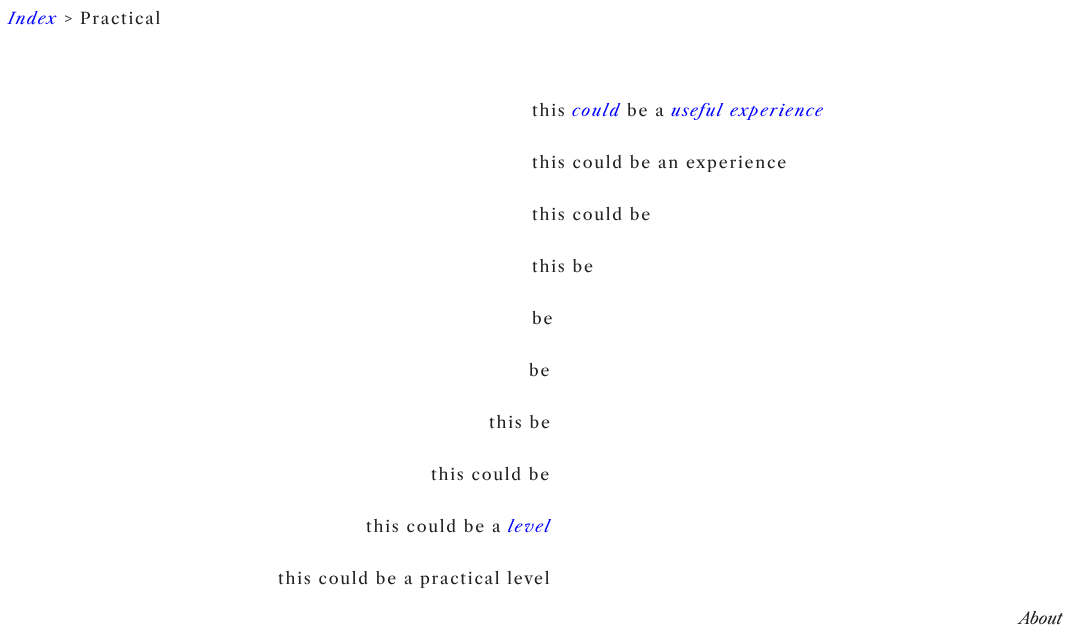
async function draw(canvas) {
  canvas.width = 1083;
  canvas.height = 641;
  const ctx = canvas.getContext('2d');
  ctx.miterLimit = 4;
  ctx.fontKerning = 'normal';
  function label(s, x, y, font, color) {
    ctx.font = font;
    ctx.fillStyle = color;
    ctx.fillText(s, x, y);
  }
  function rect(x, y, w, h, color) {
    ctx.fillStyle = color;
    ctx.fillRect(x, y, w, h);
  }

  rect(0, 0, 1083, 641, '#fff');
  ctx.letterSpacing = '1.75px';
  label('Index', 8, 24, 'italic 16px Libre Caslon Text', '#00f');
  label('> Practical', 64, 24, '16px Libre Caslon Text', '#222');
  label('this', 532, 116, '16px Libre Caslon Text', '#222');
  label('could', 572, 116, 'italic 16px Libre Caslon Text', '#00f');
  label('be a', 627, 116, '16px Libre Caslon Text', '#222');
  label('useful experience', 671, 116, 'italic 16px Libre Caslon Text', '#00f');
  label('this could be an experience', 532, 168, '16px Libre Caslon Text', '#222');
  label('this could be', 532, 220, '16px Libre Caslon Text', '#222');
  label('this be', 532, 272, '16px Libre Caslon Text', '#222');
  label('be', 532, 324, '16px Libre Caslon Text', '#222');
  label('be', 529, 376, '16px Libre Caslon Text', '#222');
  label('this be', 489, 428, '16px Libre Caslon Text', '#222');
  label('this could be', 431, 480, '16px Libre Caslon Text', '#222');
  label('this could be a', 366, 532, '16px Libre Caslon Text', '#222');
  label('level', 508, 532, 'italic 16px Libre Caslon Text', '#00f');
  label('this could be a practical level', 278, 584, '16px Libre Caslon Text', '#222');
  ctx.letterSpacing = '0px';
  label('About', 1019, 624, 'italic 16px Libre Caslon Text', '#222');
}

draw(document.querySelector('canvas'));
